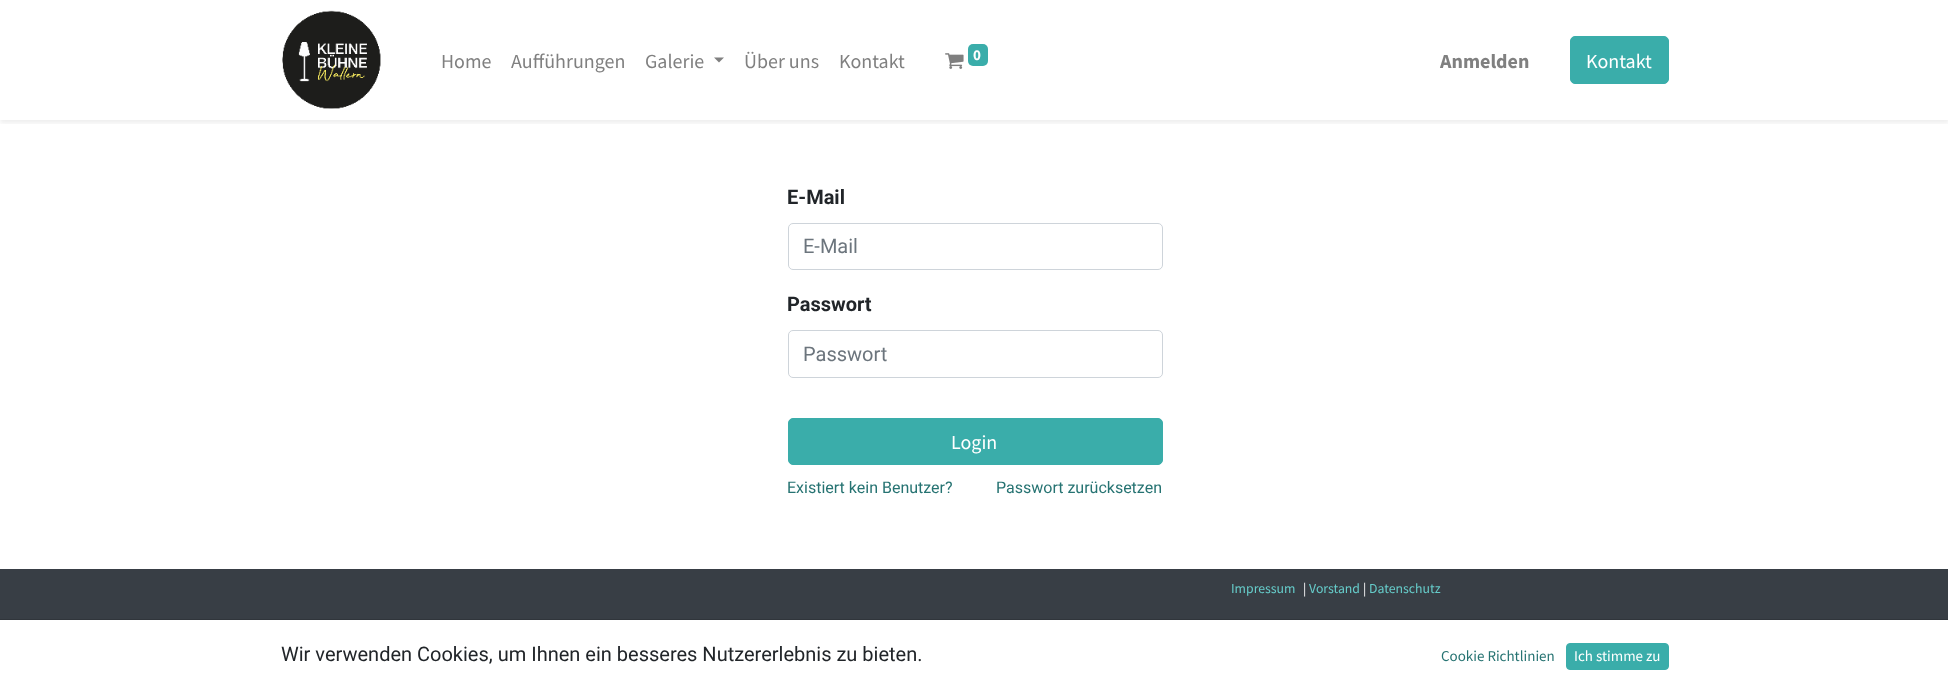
async function draw(canvas) {
  canvas.width = 1948;
  canvas.height = 689;
  const ctx = canvas.getContext('2d');
  ctx.miterLimit = 4;
  ctx.fontKerning = 'normal';
  function label(s, x, y, font, color) {
    ctx.font = font;
    ctx.fillStyle = color;
    ctx.fillText(s, x, y);
  }
  function rect(x, y, w, h, color) {
    ctx.fillStyle = color;
    ctx.fillRect(x, y, w, h);
  }
  function roundedRect(x, y, w, h, r, color) {
    ctx.fillStyle = color;
    ctx.beginPath();
    ctx.roundRect(x, y, w, h, r);
    ctx.fill();
  }
  async function image(src, x, y, w, h) {
    const img = new Image();
    img.src = src;
    await img.decode();
    ctx.drawImage(img, x, y, w, h);
  }
  let path;

  rect(0, 0, 1948, 689, '#fff');
  ctx.save();
  ctx.beginPath();
  ctx.rect(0, 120, 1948, 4);
  ctx.clip();
  ctx.fillStyle = '#00000012';
  ctx.filter = 'blur(2.5px)';
  ctx.beginPath();
  ctx.rect(0, 3, 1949, 120);
  ctx.fill();
  ctx.filter = 'none';
  ctx.restore();
  await image('assets/img1.png', 282, 10, 99, 99);
  label('Home', 441, 68, '20px Source Sans Pro', '#808080');
  label('Aufführungen', 511, 68, '20px Source Sans Pro', '#808080');
  label('Galerie', 645, 68, '20px Source Sans Pro', '#808080');
  path = new Path2D('M714 57.5H724L719 62.5Z');
  ctx.fill(path);
  label('Über uns', 744, 68, '20px Source Sans Pro', '#808080');
  label('Kontakt', 839, 68, '20px Source Sans Pro', '#808080');
  await image('assets/img2.png', 945, 53, 19, 16);
  roundedRect(968, 44, 20, 22, 5, '#3aadaa');
  label('0', 973, 60, 'bold 15px Source Sans Pro', '#fff');
  label('Anmelden', 1440, 68, 'bold 20px Source Sans Pro', '#808080');
  ctx.fillStyle = '#3aadaa';
  ctx.beginPath();
  ctx.roundRect(1570.5, 36.5, 98, 47, 4.5);
  ctx.fill();
  ctx.strokeStyle = '#3aadaa';
  ctx.stroke();
  label('Kontakt', 1586, 68, '20px Source Sans Pro', '#fff');
  label('E-Mail', 787, 204, 'bold 20px Roboto', '#212529');
  ctx.beginPath();
  ctx.roundRect(788.5, 223.5, 374, 46, 4.5);
  ctx.strokeStyle = '#ced4da';
  ctx.stroke();
  label('E-Mail', 803, 253, '20px Roboto', '#6c757d');
  label('Passwort', 787, 311, 'bold 20px Roboto', '#212529');
  ctx.beginPath();
  ctx.roundRect(788.5, 330.5, 374, 47, 4.5);
  ctx.stroke();
  label('Passwort', 803, 361, '20px Roboto', '#6c757d');
  ctx.fillStyle = '#3aadaa';
  ctx.beginPath();
  ctx.roundRect(788.5, 418.5, 374, 46, 4.5);
  ctx.fill();
  ctx.strokeStyle = '#3aadaa';
  ctx.stroke();
  label('Login', 951, 449, '20px Source Sans Pro', '#fff');
  label('Existiert kein Benutzer?', 787, 493, '16px Roboto', '#267372');
  label('Passwort zurücksetzen', 996, 493, '16px Roboto', '#267372');
  rect(0, 569, 1948, 50, '#383e45');
  label('Impressum', 1231, 593, '13.75px Source Sans Pro', '#66ccca');
  label('|', 1303, 593, '13.75px Source Sans Pro', '#fff');
  label('Vorstand', 1309, 593, '13.75px Source Sans Pro', '#66ccca');
  label('|', 1363, 593, '13.75px Source Sans Pro', '#fff');
  label('Datenschutz', 1369, 593, '13.75px Source Sans Pro', '#66ccca');
  rect(0, 619, 1948, 1, '#30353b');
  label('Wir verwenden Cookies, um Ihnen ein besseres Nutzererlebnis zu bieten.', 281, 661, '20px Roboto', '#212529');
  label('Cookie Richtlinien', 1441, 661, '15px Source Sans Pro', '#267372');
  ctx.fillStyle = '#3aadaa';
  ctx.beginPath();
  ctx.roundRect(1566.5, 643.5, 102, 26, 3.5);
  ctx.fill();
  ctx.stroke();
  label('Ich stimme zu', 1574, 661, '15px Source Sans Pro', '#fff');
}

draw(document.querySelector('canvas'));
